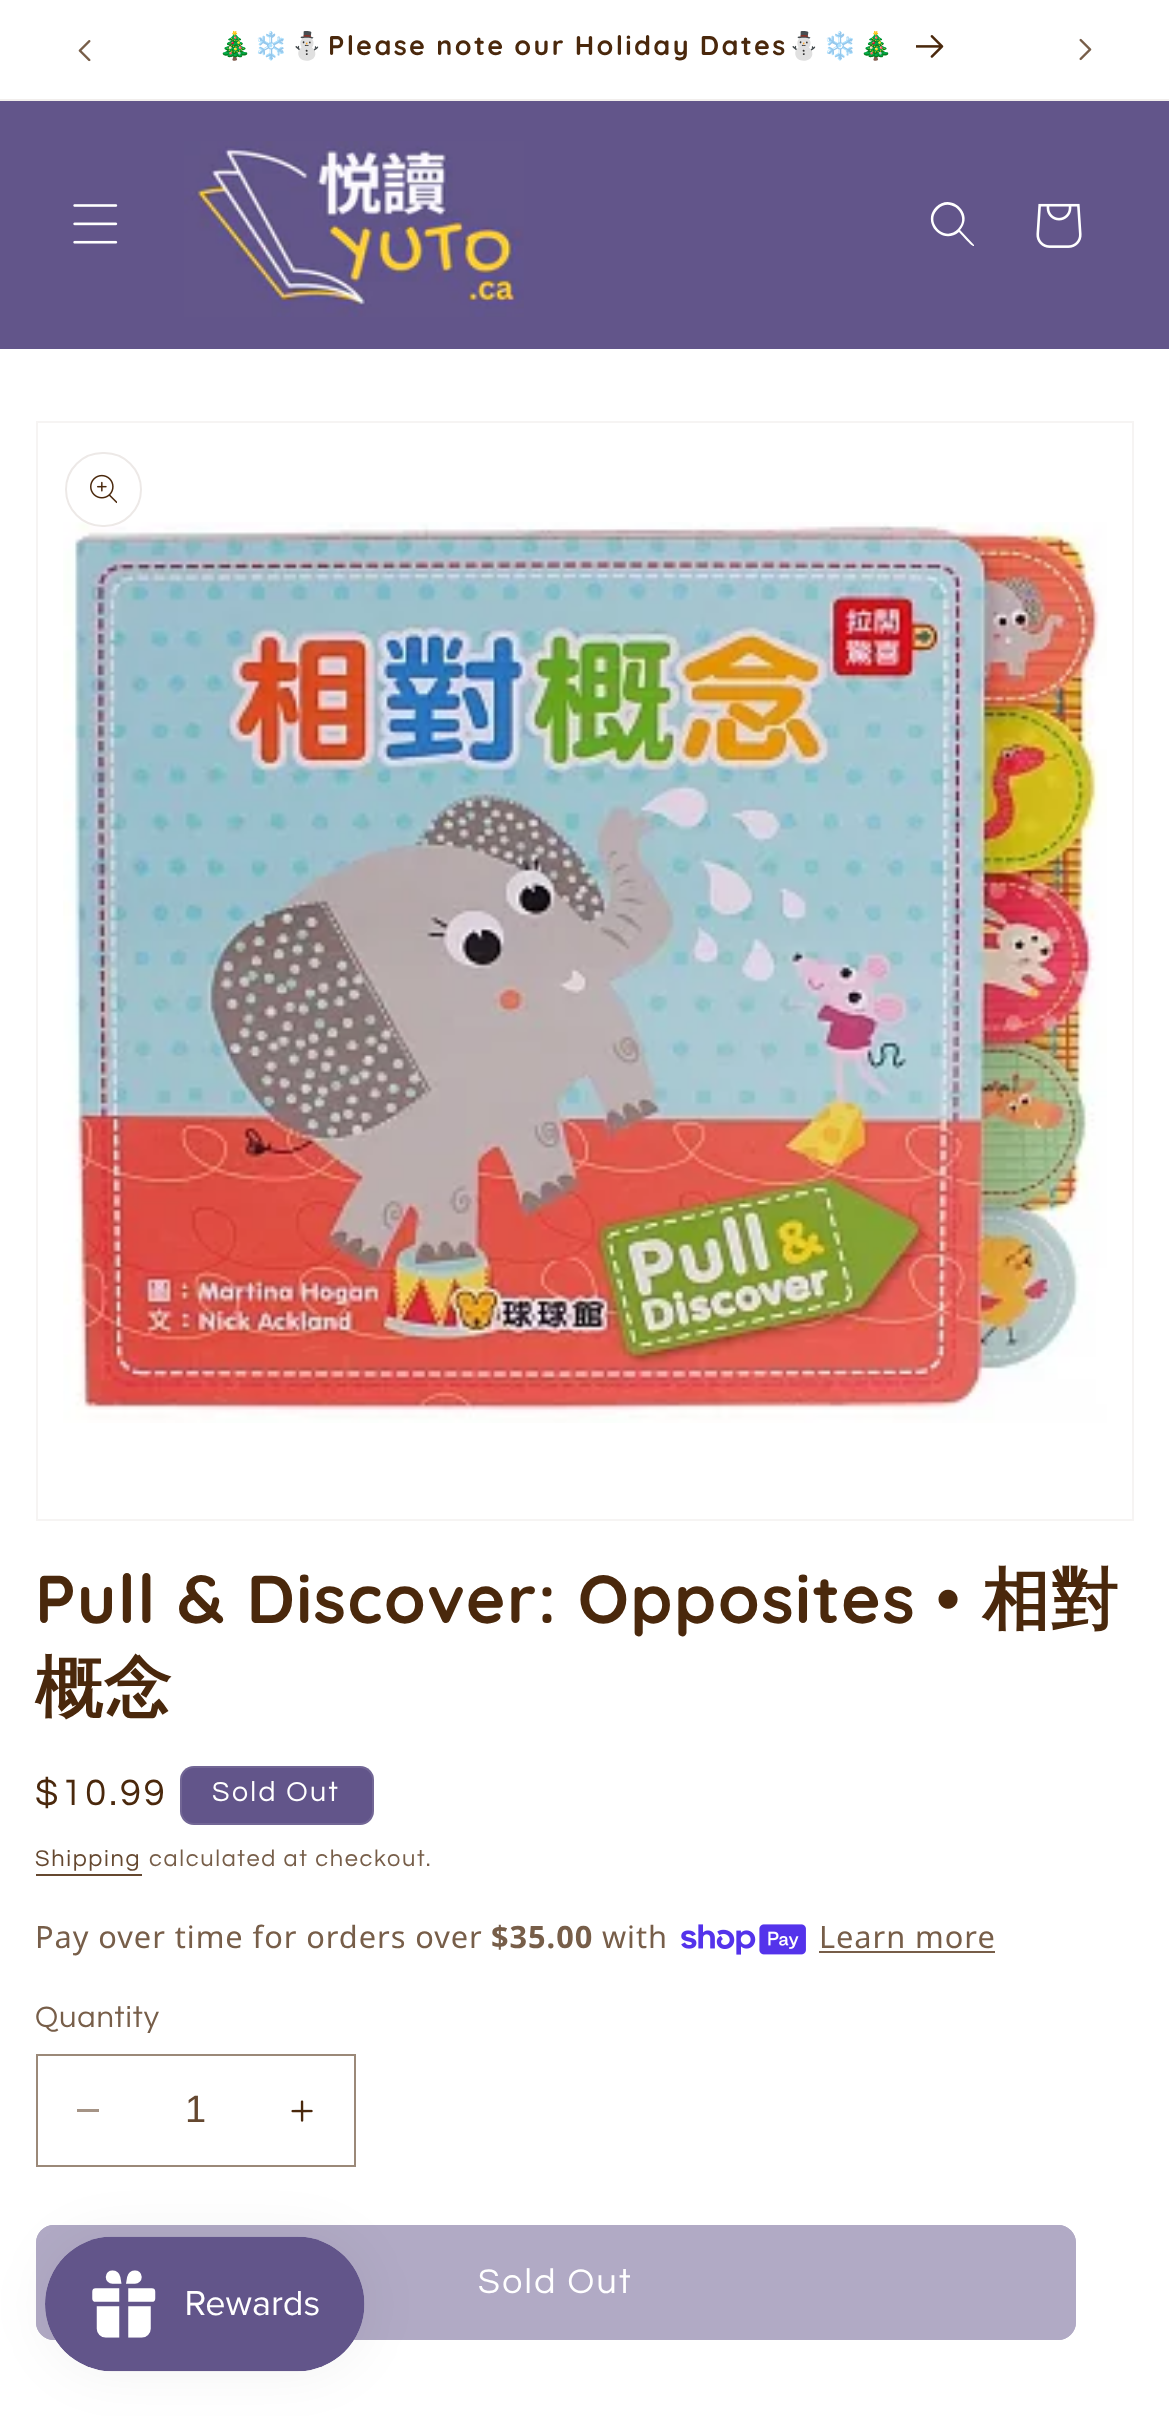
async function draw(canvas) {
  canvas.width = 1169;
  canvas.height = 2416;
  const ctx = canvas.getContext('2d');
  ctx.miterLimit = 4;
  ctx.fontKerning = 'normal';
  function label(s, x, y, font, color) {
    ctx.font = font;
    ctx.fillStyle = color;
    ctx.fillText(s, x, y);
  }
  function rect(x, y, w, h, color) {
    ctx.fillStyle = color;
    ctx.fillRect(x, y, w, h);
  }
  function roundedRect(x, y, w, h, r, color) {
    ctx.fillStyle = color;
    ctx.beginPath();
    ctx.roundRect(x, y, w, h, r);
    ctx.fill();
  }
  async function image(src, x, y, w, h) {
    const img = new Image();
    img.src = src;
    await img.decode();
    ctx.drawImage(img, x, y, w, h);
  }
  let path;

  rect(0, 0, 1169, 2416, '#fff');
  rect(0, 99, 1169, 2, '#f1eeec');
  await image('assets/img1.png', 78, 40, 13, 22);
  ctx.letterSpacing = '2.35px';
  label('🎄❄️⛄', 218, 55, 'bold 27px Noto Color Emoji', '#4a280c');
  ctx.wordSpacing = '-1px';
  label('Please note our Holiday Dates', 328, 55, 'bold 27px Quicksand', '#4a280c');
  ctx.wordSpacing = '0px';
  label('⛄❄️🎄', 787, 55, 'bold 27px Noto Color Emoji', '#4a280c');
  await image('assets/img2.png', 916, 35, 28, 23);
  await image('assets/img3.png', 1079, 38, 13, 23);
  rect(0, 101, 1169, 248, '#62558a');
  await image('assets/img4.png', 73, 204, 45, 40);
  await image('assets/img5.png', 184, 141, 340, 176);
  ctx.fillStyle = '#fff';
  path = new Path2D('M958 229C945 243 924 222 938 209C951 196 971 216 958 229ZM959 232C942 246 921 222 936 207C951 192 975 214 960 230L974 245V246C972 247 961 234 959 232Z');
  ctx.fill(path, 'evenodd');
  await image('assets/img6.png', 1036, 203, 46, 45);
  ctx.strokeStyle = '#f6f4f3';
  ctx.lineWidth = 2;
  ctx.strokeRect(37, 422, 1096, 1098);
  await image('assets/img8.png', 63, 522, 1044, 901);
  ctx.beginPath();
  ctx.roundRect(66, 453, 75, 73, 36.5);
  ctx.fill();
  ctx.strokeStyle = '#ede9e7';
  ctx.stroke();
  await image('assets/img7.png', 90, 474, 27, 30);
  ctx.letterSpacing = '1.35px';
  label('Pull & Discover: Opposites •', 35, 1623, 'bold 67.5px Quicksand', '#4a280c');
  label('相對', 982, 1623, 'bold 67.5px WenQuanYi Zen Hei', '#4a280c');
  label('概念', 35, 1711, 'bold 67.5px WenQuanYi Zen Hei', '#4a280c');
  ctx.letterSpacing = '3px';
  label('$10.99', 35, 1805, '38px Questrial', '#4a280c');
  roundedRect(180, 1766, 194, 59, 14, '#62558a');
  ctx.beginPath();
  ctx.roundRect(181, 1767, 192, 57, 13);
  ctx.strokeStyle = '#ffffff1a';
  ctx.stroke();
  ctx.letterSpacing = '2.35px';
  label('Sold Out', 212, 1801, '28.5px Questrial', '#fff');
  ctx.letterSpacing = '1.65px';
  label('Shipping', 35, 1866, '23.6px Questrial', '#654830');
  rect(36, 1874, 106, 2, '#654830');
  label('calculated at checkout.', 149, 1866, '23.6px Questrial', '#775e49');
  ctx.letterSpacing = '0.95px';
  label('Pay over time for orders over', 35, 1948, '30.75px Noto Sans', '#775e49');
  label('$35.00', 491, 1948, 'bold 30.75px Noto Sans', '#775e49');
  label('with', 602, 1948, '30.75px Noto Sans', '#775e49');
  await image('assets/img9.png', 681, 1924, 125, 31);
  label('Learn more', 819, 1948, '30.75px Noto Sans', '#775e49');
  rect(819, 1951, 176, 2, '#775e49');
  label('Quantity', 35, 2027, '30.75px Questrial', '#775e49');
  rect(77, 2109, 22, 3, '#a59486');
  await image('assets/img10.png', 291, 2100, 22, 22);
  ctx.strokeStyle = '#9b8979';
  ctx.strokeRect(37, 2055, 318, 111);
  ctx.letterSpacing = '0px';
  label('1', 185, 2122, '38px Liberation Sans', '#654830');
  roundedRect(36, 2225, 1040, 115, 18, '#b1aac5');
  ctx.beginPath();
  ctx.roundRect(38.5, 2227.5, 1035, 110, 15.5);
  ctx.strokeStyle = '#b1aac5';
  ctx.lineWidth = 5;
  ctx.stroke();
  ctx.letterSpacing = '2.35px';
  label('Sold Out', 478, 2293, '35.5px Questrial', '#fff');
  ctx.fillStyle = '#0000000d';
  ctx.filter = 'blur(28px)';
  ctx.beginPath();
  ctx.roundRect(45, 2237, 320, 135, 67.5);
  ctx.fill();
  ctx.filter = 'none';
  await image('assets/img11.png', 45, 2236, 320, 136);
}

draw(document.querySelector('canvas'));
